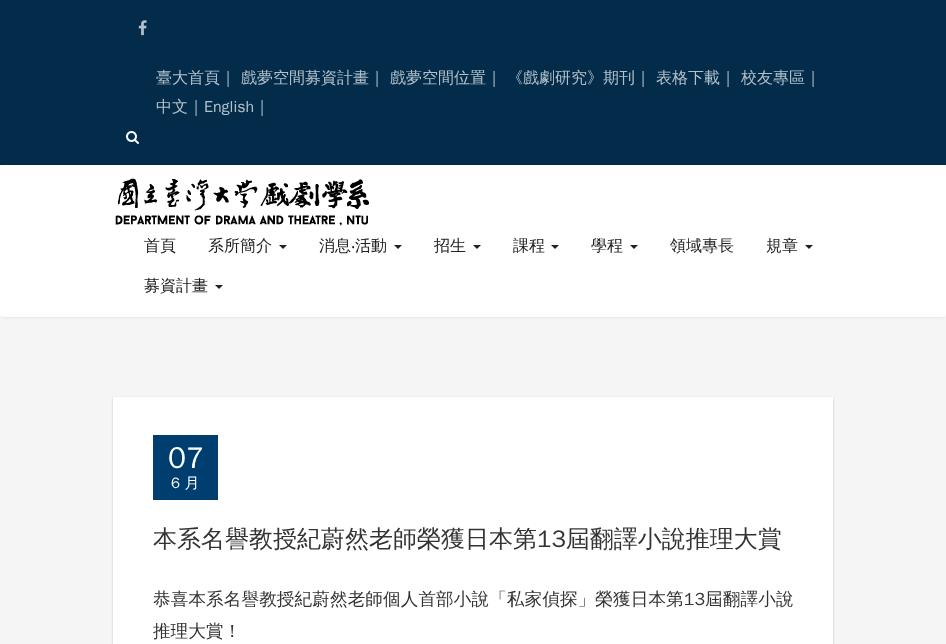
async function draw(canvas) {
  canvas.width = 946;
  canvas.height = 644;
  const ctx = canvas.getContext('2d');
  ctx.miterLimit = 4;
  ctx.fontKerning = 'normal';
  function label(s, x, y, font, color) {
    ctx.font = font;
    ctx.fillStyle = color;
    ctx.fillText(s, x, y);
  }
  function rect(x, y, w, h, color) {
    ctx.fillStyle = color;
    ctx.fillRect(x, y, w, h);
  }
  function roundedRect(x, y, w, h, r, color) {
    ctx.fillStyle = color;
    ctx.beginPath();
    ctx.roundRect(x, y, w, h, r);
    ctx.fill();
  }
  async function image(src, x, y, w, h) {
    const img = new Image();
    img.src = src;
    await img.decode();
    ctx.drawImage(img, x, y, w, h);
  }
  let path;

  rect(0, 0, 946, 644, '#fff');
  rect(0, 0, 946, 165, '#032c4b');
  await image('assets/img1.png', 138, 20, 9, 16);
  label('臺大首頁', 156, 83, '500 16px WenQuanYi Zen Hei', '#b3c0c9');
  label('|', 226, 83, '500 16px WenQuanYi Zen Hei', '#b3c0c9');
  label('戲夢空間募資計畫', 241, 83, '500 16px WenQuanYi Zen Hei', '#b3c0c9');
  label('|', 375, 83, '500 16px WenQuanYi Zen Hei', '#b3c0c9');
  label('戲夢空間位置', 390, 83, '500 16px WenQuanYi Zen Hei', '#b3c0c9');
  label('|', 492, 83, '500 16px WenQuanYi Zen Hei', '#b3c0c9');
  label('《戲劇研究》期刊', 507, 83, '500 16px WenQuanYi Zen Hei', '#b3c0c9');
  label('|', 641, 83, '500 16px WenQuanYi Zen Hei', '#b3c0c9');
  label('表格下載', 656, 83, '500 16px WenQuanYi Zen Hei', '#b3c0c9');
  label('|', 726, 83, '500 16px WenQuanYi Zen Hei', '#b3c0c9');
  label('校友專區', 741, 83, '500 16px WenQuanYi Zen Hei', '#b3c0c9');
  label('|', 811, 83, '500 16px WenQuanYi Zen Hei', '#b3c0c9');
  label('中文', 156, 112, '500 16px WenQuanYi Zen Hei', '#b3c0c9');
  label('|', 194, 112, '500 16px WenQuanYi Zen Hei', '#b3c0c9');
  label('English', 204, 112, '500 16px WenQuanYi Zen Hei', '#b3c0c9');
  label('|', 260, 112, '500 16px WenQuanYi Zen Hei', '#b3c0c9');
  await image('assets/img2.png', 126, 131, 13, 13);
  rect(0, 317, 946, 327, '#f5f5f5');
  ctx.fillStyle = '#0000001a';
  ctx.filter = 'blur(1.5px)';
  ctx.beginPath();
  ctx.roundRect(0, 165, 946, 152, 4);
  ctx.fill();
  ctx.filter = 'none';
  roundedRect(0, 165, 946, 152, 4, '#fff');
  await image('assets/img3.png', 115, 178, 254, 48);
  label('首頁', 144, 251, '500 16px WenQuanYi Zen Hei', '#212121');
  label('系所簡介', 208, 251, '500 16px WenQuanYi Zen Hei', '#212121');
  path = new Path2D('M279 245H287L283 249Z');
  ctx.fill(path);
  label('消息', 319, 251, '500 16px WenQuanYi Zen Hei', '#212121');
  label('‧', 351, 251, '16px Noto Sans', '#212121');
  label('活動', 355, 251, '500 16px WenQuanYi Zen Hei', '#212121');
  path = new Path2D('M394 245H402L398 249Z');
  ctx.fill(path);
  label('招生', 434, 251, '500 16px WenQuanYi Zen Hei', '#212121');
  path = new Path2D('M473 245H481L477 249Z');
  ctx.fill(path);
  label('課程', 513, 251, '500 16px WenQuanYi Zen Hei', '#212121');
  path = new Path2D('M551 245H559L555 249Z');
  ctx.fill(path);
  label('學程', 591, 251, '500 16px WenQuanYi Zen Hei', '#212121');
  path = new Path2D('M630 245H638L634 249Z');
  ctx.fill(path);
  label('領域專長', 670, 251, '500 16px WenQuanYi Zen Hei', '#212121');
  label('規章', 766, 251, '500 16px WenQuanYi Zen Hei', '#212121');
  path = new Path2D('M805 245H813L809 249Z');
  ctx.fill(path);
  label('募資計畫', 144, 291, '500 16px WenQuanYi Zen Hei', '#212121');
  path = new Path2D('M215 285H223L219 289Z');
  ctx.fill(path);
  ctx.fillStyle = '#00000033';
  ctx.filter = 'blur(1px)';
  ctx.beginPath();
  ctx.rect(113, 398, 720, 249);
  ctx.fill();
  ctx.filter = 'none';
  rect(113, 397, 720, 247, '#fff');
  rect(153, 435, 65, 65, '#003e6f');
  label('07', 168, 468, '500 30px WenQuanYi Zen Hei', '#fff');
  label('6 月', 171, 488, '500 15px WenQuanYi Zen Hei', '#fff');
  label('本系名譽教授紀蔚然老師榮獲日本第13屆翻譯小說推理大賞', 153, 547, '500 24px WenQuanYi Zen Hei', '#333');
  ctx.letterSpacing = '0.1px';
  label('恭喜本系名譽教授紀蔚然老師個人首部小說「私家偵探」榮獲日本第13屆翻譯小說', 153, 605, '500 17.6px WenQuanYi Zen Hei', '#333');
  ctx.letterSpacing = '0px';
  label('推理大賞！', 153, 637, '500 17.6px WenQuanYi Zen Hei', '#333');
}

draw(document.querySelector('canvas'));
